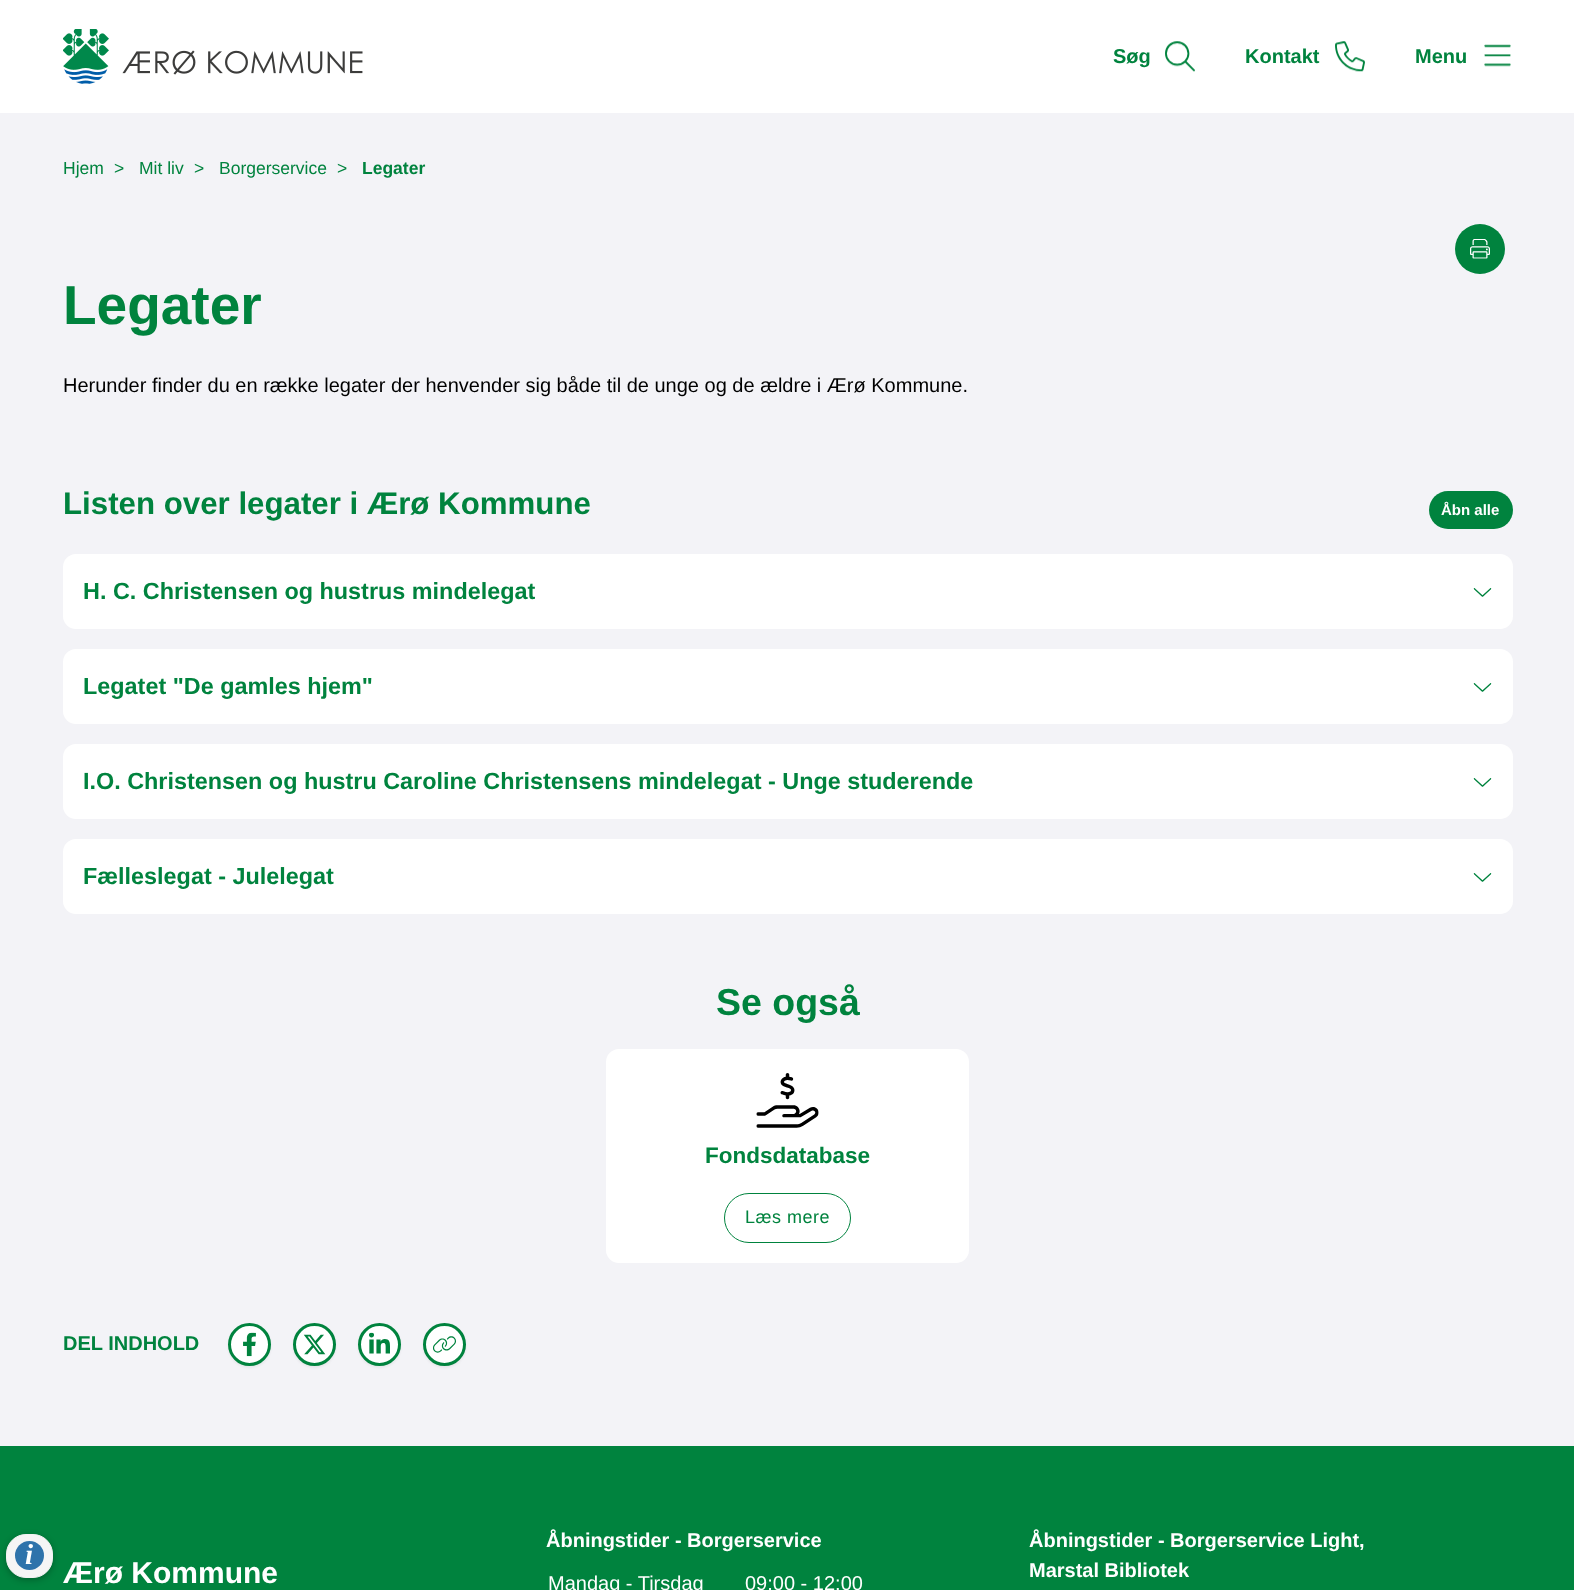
async function draw(canvas) {
  canvas.width = 1574;
  canvas.height = 1590;
  const ctx = canvas.getContext('2d');
  ctx.miterLimit = 4;
  ctx.fontKerning = 'normal';
  function label(s, x, y, font, color) {
    ctx.font = font;
    ctx.fillStyle = color;
    ctx.fillText(s, x, y);
  }
  function rect(x, y, w, h, color) {
    ctx.fillStyle = color;
    ctx.fillRect(x, y, w, h);
  }
  function roundedRect(x, y, w, h, r, color) {
    ctx.fillStyle = color;
    ctx.beginPath();
    ctx.roundRect(x, y, w, h, r);
    ctx.fill();
  }
  async function image(src, x, y, w, h) {
    const img = new Image();
    img.src = src;
    await img.decode();
    ctx.drawImage(img, x, y, w, h);
  }

  rect(0, 0, 1574, 1590, '#f3f3f7');
  rect(0, 1446, 1574, 144, '#00833e');
  ctx.fillStyle = '#00000042';
  ctx.filter = 'blur(3px)';
  ctx.beginPath();
  ctx.roundRect(6, 1536, 47, 44, 20);
  ctx.fill();
  ctx.filter = 'none';
  ctx.fillStyle = '#f5f5f5';
  ctx.beginPath();
  ctx.roundRect(6.5, 1534.5, 46, 43, 19.5);
  ctx.fill();
  ctx.strokeStyle = '#f2f2f2';
  ctx.stroke();
  ctx.fillStyle = '#2e73ab';
  ctx.beginPath();
  ctx.arc(29.5, 1555.5, 14.5, 0, 2 * Math.PI);
  ctx.fill();
  label('i', 25, 1564, 'italic bold 29px Liberation Serif', '#fff');
  rect(0, 0, 1574, 113, '#fff');
  await image('assets/img1.png', 63, 29, 300, 55);
  label('Søg', 1113, 63, 'bold 20px Liberation Sans', '#00833e');
  await image('assets/img2.png', 1165, 41, 30, 31);
  label('Kontakt', 1245, 63, 'bold 20px Liberation Sans', '#00833e');
  await image('assets/img3.png', 1335, 41, 30, 31);
  label('Menu', 1415, 63, 'bold 20px Liberation Sans', '#00833e');
  await image('assets/img4.png', 1484, 44, 27, 23);
  label('Hjem', 63, 174, '17.5px Liberation Sans', '#00833e');
  label('>', 114, 174, '17.5px Liberation Sans', '#00833e');
  label('Mit liv', 139, 174, '17.5px Liberation Sans', '#00833e');
  label('>', 194, 174, '17.5px Liberation Sans', '#00833e');
  label('Borgerservice', 219, 174, '17.5px Liberation Sans', '#00833e');
  label('>', 337, 174, '17.5px Liberation Sans', '#00833e');
  label('Legater', 362, 174, 'bold 17.5px Liberation Sans', '#00833e');
  ctx.beginPath();
  ctx.arc(1480, 249, 25, 0, 2 * Math.PI);
  ctx.fill();
  await image('assets/img5.png', 1470, 239, 20, 20);
  label('Legater', 63, 324, 'bold 55px Liberation Sans', '#00833e');
  label('Herunder finder du en række legater der henvender sig både til de unge og de ældre i Ærø Kommune.', 63, 392, '20px Liberation Sans', '#000');
  label('Listen over legater i Ærø Kommune', 63, 514, 'bold 31.25px Liberation Sans', '#00833e');
  roundedRect(1429, 491, 84, 38, 19, '#00833e');
  label('Åbn alle', 1441, 515, 'bold 15px Liberation Sans', '#fff');
  roundedRect(63, 554, 1450, 75, 13, '#fff');
  label('H. C. Christensen og hustrus mindelegat', 83, 599, 'bold 23.4px Liberation Sans', '#00833e');
  await image('assets/img6.png', 1473, 588, 19, 9);
  roundedRect(63, 649, 1450, 75, 13, '#fff');
  label('Legatet "De gamles hjem"', 83, 694, 'bold 23.4px Liberation Sans', '#00833e');
  await image('assets/img6.png', 1473, 683, 19, 9);
  roundedRect(63, 744, 1450, 75, 13, '#fff');
  label('I.O. Christensen og hustru Caroline Christensens mindelegat - Unge studerende', 83, 789, 'bold 23.4px Liberation Sans', '#00833e');
  await image('assets/img6.png', 1473, 778, 19, 9);
  roundedRect(63, 839, 1450, 75, 13, '#fff');
  label('Fælleslegat - Julelegat', 83, 884, 'bold 23.4px Liberation Sans', '#00833e');
  await image('assets/img6.png', 1473, 873, 19, 9);
  label('Se også', 716, 1015, 'bold 37.5px Liberation Sans', '#00833e');
  roundedRect(606, 1049, 363, 214, 13, '#fff');
  await image('assets/img7.png', 756, 1073, 63, 55);
  label('Fondsdatabase', 705, 1163, 'bold 22.5px Liberation Sans', '#00833e');
  ctx.beginPath();
  ctx.roundRect(724.5, 1193.5, 126, 49, 24.5);
  ctx.strokeStyle = '#00833e';
  ctx.stroke();
  ctx.letterSpacing = '0.5px';
  label('Læs mere', 745, 1223, '18px Liberation Sans', '#00833e');
  ctx.letterSpacing = '0px';
  label('DEL INDHOLD', 63, 1350, 'bold 20px Liberation Sans', '#00833e');
  ctx.fillStyle = '#0000000d';
  ctx.filter = 'blur(1px)';
  ctx.beginPath();
  ctx.roundRect(228, 1324, 43, 44, 21.5);
  ctx.fill();
  ctx.filter = 'none';
  ctx.fillStyle = '#fff';
  ctx.beginPath();
  ctx.arc(249.5, 1344.5, 20, 0, 2 * Math.PI);
  ctx.fill();
  ctx.lineWidth = 3;
  ctx.stroke();
  await image('assets/img8.png', 243, 1332, 13, 25);
  ctx.fillStyle = '#0000000d';
  ctx.filter = 'blur(1px)';
  ctx.beginPath();
  ctx.roundRect(293, 1324, 43, 44, 21.5);
  ctx.fill();
  ctx.filter = 'none';
  ctx.fillStyle = '#fff';
  ctx.beginPath();
  ctx.arc(314.5, 1344.5, 20, 0, 2 * Math.PI);
  ctx.fill();
  ctx.stroke();
  await image('assets/img9.png', 303, 1334, 23, 21);
  ctx.fillStyle = '#0000000d';
  ctx.filter = 'blur(1px)';
  ctx.beginPath();
  ctx.roundRect(358, 1324, 43, 44, 21.5);
  ctx.fill();
  ctx.filter = 'none';
  ctx.fillStyle = '#fff';
  ctx.beginPath();
  ctx.arc(379.5, 1344.5, 20, 0, 2 * Math.PI);
  ctx.fill();
  ctx.stroke();
  await image('assets/img10.png', 369, 1332, 21, 22);
  ctx.fillStyle = '#0000000d';
  ctx.filter = 'blur(1px)';
  ctx.beginPath();
  ctx.roundRect(423, 1324, 43, 44, 21.5);
  ctx.fill();
  ctx.filter = 'none';
  ctx.fillStyle = '#fff';
  ctx.beginPath();
  ctx.arc(444.5, 1344.5, 20, 0, 2 * Math.PI);
  ctx.fill();
  ctx.stroke();
  await image('assets/img11.png', 433, 1336, 23, 17);
  label('Ærø Kommune', 63, 1583, 'bold 30px Liberation Sans', '#fff');
  label('Åbningstider - Borgerservice', 546, 1547, 'bold 20px Liberation Sans', '#fff');
  label('Mandag - Tirsdag', 548, 1590, '20px Liberation Sans', '#fff');
  label('09:00 - 12:00', 745, 1590, '20px Liberation Sans', '#fff');
  label('Åbningstider - Borgerservice Light,', 1029, 1547, 'bold 20px Liberation Sans', '#fff');
  label('Marstal Bibliotek', 1029, 1577, 'bold 20px Liberation Sans', '#fff');
}

draw(document.querySelector('canvas'));
